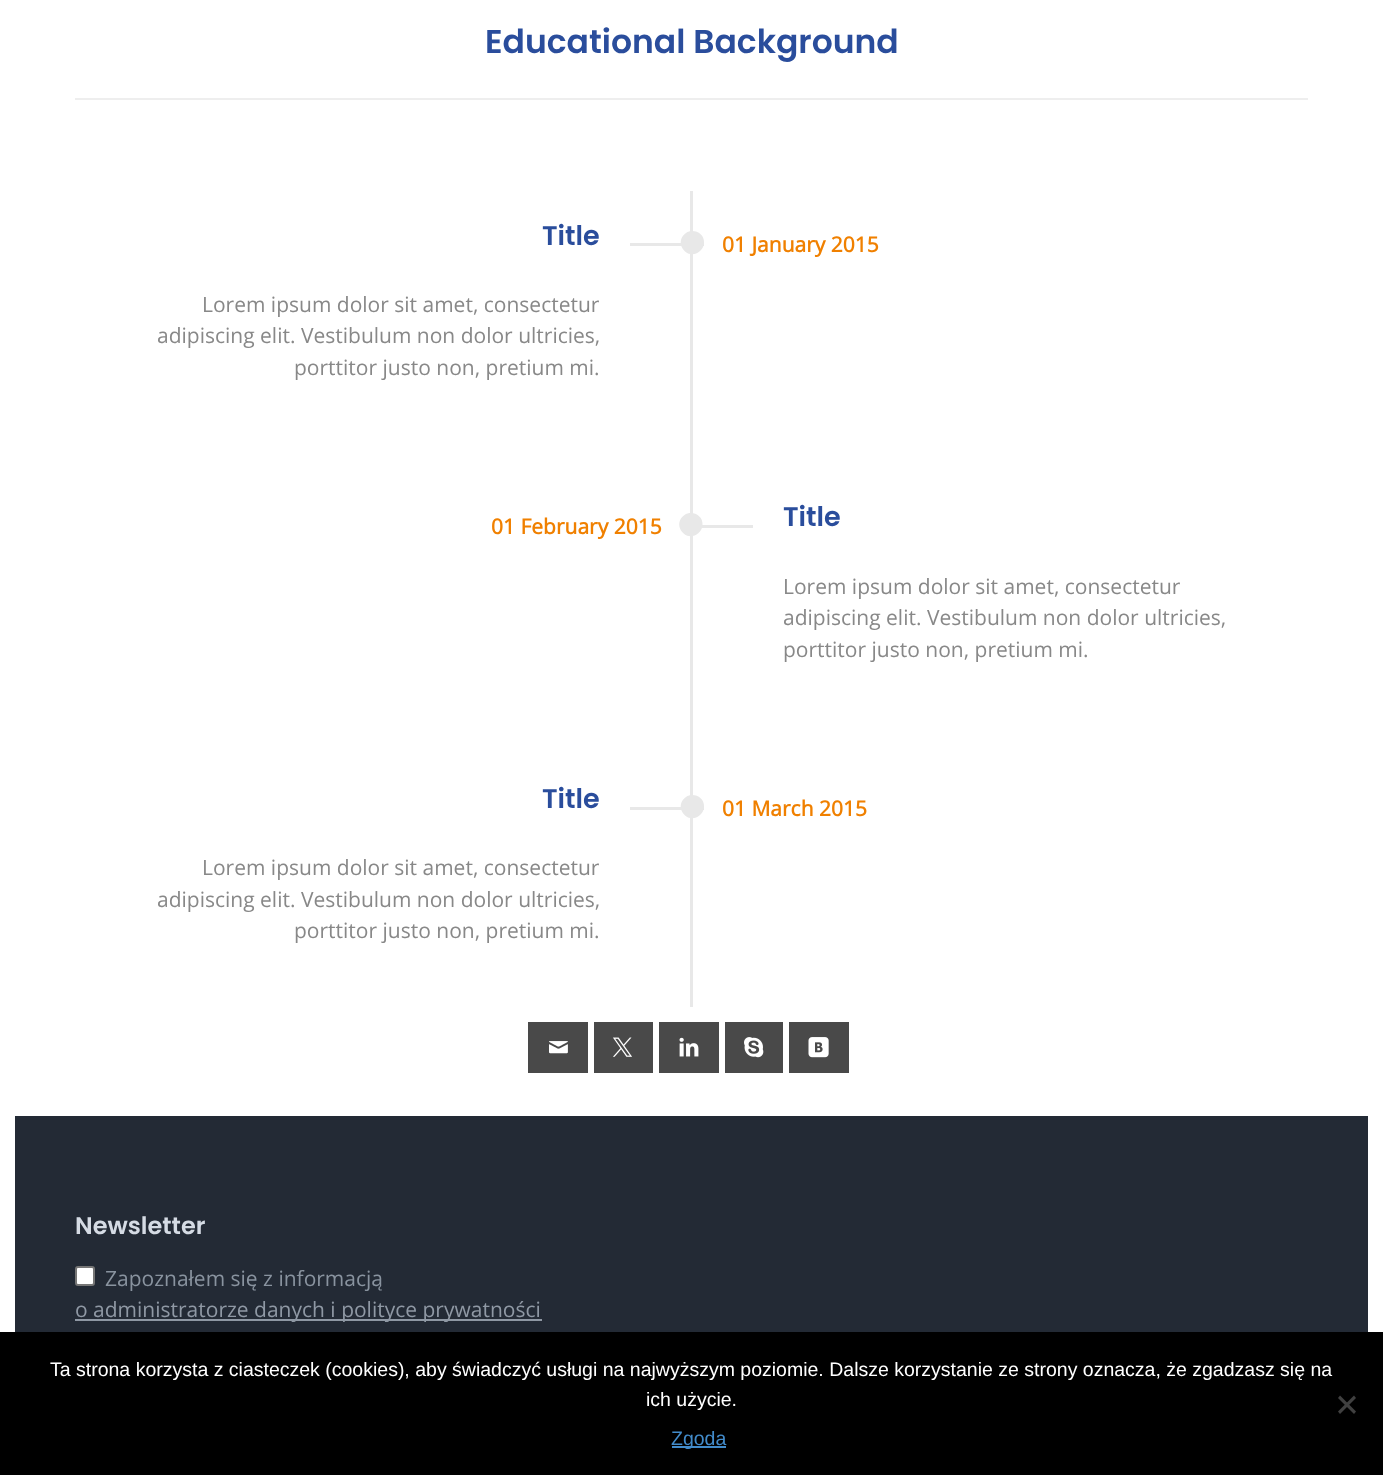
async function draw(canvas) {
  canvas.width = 1383;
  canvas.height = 1475;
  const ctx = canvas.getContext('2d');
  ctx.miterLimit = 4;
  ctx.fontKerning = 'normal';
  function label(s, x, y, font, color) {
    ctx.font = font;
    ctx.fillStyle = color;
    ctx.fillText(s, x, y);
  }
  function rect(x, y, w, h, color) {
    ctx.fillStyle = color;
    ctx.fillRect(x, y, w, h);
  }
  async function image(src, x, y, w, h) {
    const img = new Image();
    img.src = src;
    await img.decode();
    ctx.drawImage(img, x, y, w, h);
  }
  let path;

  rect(0, 0, 1383, 1475, '#fff');
  label('Educational Background', 485, 53, '600 33px Poppins', '#2a4d9c');
  rect(75, 98, 1233, 2, '#eee');
  rect(690, 191, 3, 816, '#e8e8e8');
  label('Title', 542, 245, '600 27px Poppins', '#2a4d9c');
  label('Lorem ipsum dolor sit amet, consectetur', 202, 312, '21px Open Sans', '#888');
  label('adipiscing elit. Vestibulum non dolor ultricies,', 157, 343, '21px Open Sans', '#888');
  label('porttitor justo non, pretium mi.', 294, 375, '21px Open Sans', '#888');
  rect(630, 243, 74, 3, '#e8e8e8');
  path = new Path2D('M704 242.5C704 246 702.5 249 700 251C688 262 672.5 242.5 686 233C693.5 228 704.5 233.5 704 242.5Z');
  ctx.fill(path);
  label('01 January 2015', 722, 252, 'bold 21px Open Sans', '#f08000');
  label('01 February 2015', 491, 534, 'bold 21px Open Sans', '#f08000');
  rect(701, 525, 52, 3, '#e8e8e8');
  path = new Path2D('M702.5 524.5C702.5 528 701 531 698.5 533C686.5 544 671 524.5 684.5 515C692 510 703 515.5 702.5 524.5Z');
  ctx.fill(path);
  label('Title', 783, 526, '600 27px Poppins', '#2a4d9c');
  label('Lorem ipsum dolor sit amet, consectetur', 783, 594, '21px Open Sans', '#888');
  label('adipiscing elit. Vestibulum non dolor ultricies,', 783, 625, '21px Open Sans', '#888');
  label('porttitor justo non, pretium mi.', 783, 657, '21px Open Sans', '#888');
  label('Title', 542, 808, '600 27px Poppins', '#2a4d9c');
  label('Lorem ipsum dolor sit amet, consectetur', 202, 875, '21px Open Sans', '#888');
  label('adipiscing elit. Vestibulum non dolor ultricies,', 157, 907, '21px Open Sans', '#888');
  label('porttitor justo non, pretium mi.', 294, 938, '21px Open Sans', '#888');
  rect(630, 807, 74, 3, '#e8e8e8');
  path = new Path2D('M704 806.5C704 810 702.5 813 700 815C688 826 672.5 806.5 686 797C693.5 792 704.5 797.5 704 806.5Z');
  ctx.fill(path);
  label('01 March 2015', 722, 816, 'bold 21px Open Sans', '#f08000');
  rect(528, 1022, 60, 51, '#494949');
  await image('assets/img1.png', 549, 1041, 19, 13);
  rect(594, 1022, 59, 51, '#494949');
  await image('assets/img2.png', 613, 1037, 19, 20);
  rect(659, 1022, 60, 51, '#494949');
  await image('assets/img3.png', 679, 1037, 20, 20);
  rect(725, 1022, 58, 51, '#494949');
  await image('assets/img4.png', 744, 1037, 20, 21);
  rect(789, 1022, 60, 51, '#494949');
  await image('assets/img5.png', 808, 1037, 21, 21);
  rect(15, 1116, 1353, 216, '#232a35');
  label('Newsletter', 75, 1234, '600 24px Poppins', '#d5dbe4');
  ctx.fillStyle = '#fff';
  ctx.beginPath();
  ctx.roundRect(76, 1267, 18, 18, 2);
  ctx.fill();
  ctx.strokeStyle = '#767676';
  ctx.lineWidth = 2;
  ctx.stroke();
  label('Zapoznałem się z informacją', 105, 1286, '21px Open Sans', '#89939f');
  rect(75, 1319, 467, 2, '#8f98a4');
  label('o administratorze danych i polityce prywatności', 75, 1317, '21px Open Sans', '#8f98a4');
  rect(0, 1332, 1383, 143, '#000');
  label('Ta strona korzysta z ciasteczek (cookies), aby świadczyć usługi na najwyższym poziomie. Dalsze korzystanie ze strony oznacza, że zgadzasz się na', 50, 1376, '19.5px Liberation Sans', '#fff');
  label('ich użycie.', 646, 1406, '19.5px Liberation Sans', '#fff');
  ctx.fillStyle = '#404040';
  path = new Path2D('M1354 1395.5L1356 1398L1340 1414L1338 1411.5Z');
  ctx.fill(path);
  path = new Path2D('M1338 1398L1340 1395.5L1356 1411.5L1354 1414Z');
  ctx.fill(path);
  rect(672, 1446, 54, 2, '#428bca');
  label('Zgoda', 671, 1445, '19.5px Liberation Sans', '#428bca');
}

draw(document.querySelector('canvas'));
